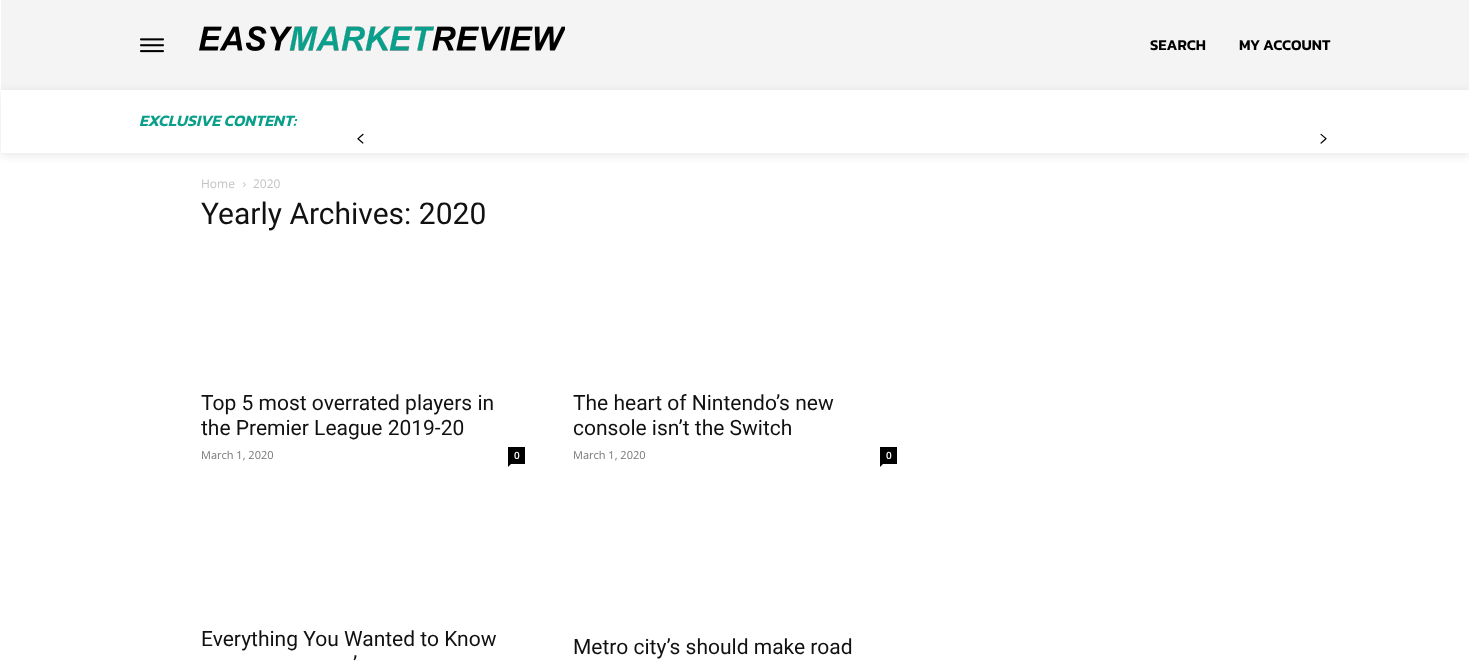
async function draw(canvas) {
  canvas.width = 1469;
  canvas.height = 665;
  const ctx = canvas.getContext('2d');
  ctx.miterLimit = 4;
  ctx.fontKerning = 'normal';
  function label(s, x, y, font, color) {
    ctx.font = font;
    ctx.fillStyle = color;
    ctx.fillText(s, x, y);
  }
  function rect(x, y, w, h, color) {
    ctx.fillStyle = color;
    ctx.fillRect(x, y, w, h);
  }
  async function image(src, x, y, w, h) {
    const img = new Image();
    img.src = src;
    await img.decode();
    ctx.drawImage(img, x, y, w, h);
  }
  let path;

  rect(0, 0, 1469, 665, '#fff');
  rect(1, 0, 1468, 90, '#f4f4f4');
  await image('assets/img1.png', 140, 38, 24, 15);
  await image('assets/img2.png', 199, 26, 366, 25);
  label('SEARCH', 1150, 50, '600 15px Kanit', '#000');
  label('MY ACCOUNT', 1239, 50, '600 15px Kanit', '#000');
  await image('assets/img3.png', 357, 133, 7, 11);
  await image('assets/img4.png', 1320, 133, 7, 11);
  ctx.save();
  path = new Path2D('M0 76H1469V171H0ZM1 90H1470V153H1Z');
  ctx.clip(path, 'evenodd');
  ctx.fillStyle = '#0000001a';
  ctx.filter = 'blur(5px)';
  ctx.beginPath();
  ctx.rect(1, 92, 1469, 63);
  ctx.fill();
  ctx.filter = 'none';
  ctx.restore();
  label('EXCLUSIVE CONTENT:', 139, 126, 'italic 600 16px Kanit', '#099f8a');
  label('Home', 201, 188, '12px Open Sans', '#c3c3c3');
  await image('assets/img5.png', 243, 182, 3, 5);
  label('2020', 253, 188, '12px Open Sans', '#c3c3c3');
  label('Yearly Archives: 2020', 201, 224, '30px Roboto', '#111');
  label('Top 5 most overrated players in', 201, 410, '21px Roboto', '#111');
  label('the Premier League 2019-20', 201, 435, '21px Roboto', '#111');
  label('March 1, 2020', 201, 459, '11px Open Sans', '#767676');
  rect(508, 447, 17, 17, '#000');
  label('0', 514, 459, '600 10px Open Sans', '#fff');
  ctx.fillStyle = '#000';
  path = new Path2D('M508 464H511L508 467Z');
  ctx.fill(path);
  label('The heart of Nintendo’s new', 573, 410, '21px Roboto', '#111');
  label('console isn’t the Switch', 573, 435, '21px Roboto', '#111');
  label('March 1, 2020', 573, 459, '11px Open Sans', '#767676');
  rect(880, 447, 17, 17, '#000');
  label('0', 886, 459, '600 10px Open Sans', '#fff');
  ctx.fillStyle = '#000';
  path = new Path2D('M880 464H883L880 467Z');
  ctx.fill(path);
  label('Everything You Wanted to Know', 201, 646, '21px Roboto', '#111');
  label('’', 353, 671, '21px Roboto', '#111');
  label('Metro city’s should make road', 573, 654, '21px Roboto', '#111');
}

draw(document.querySelector('canvas'));
